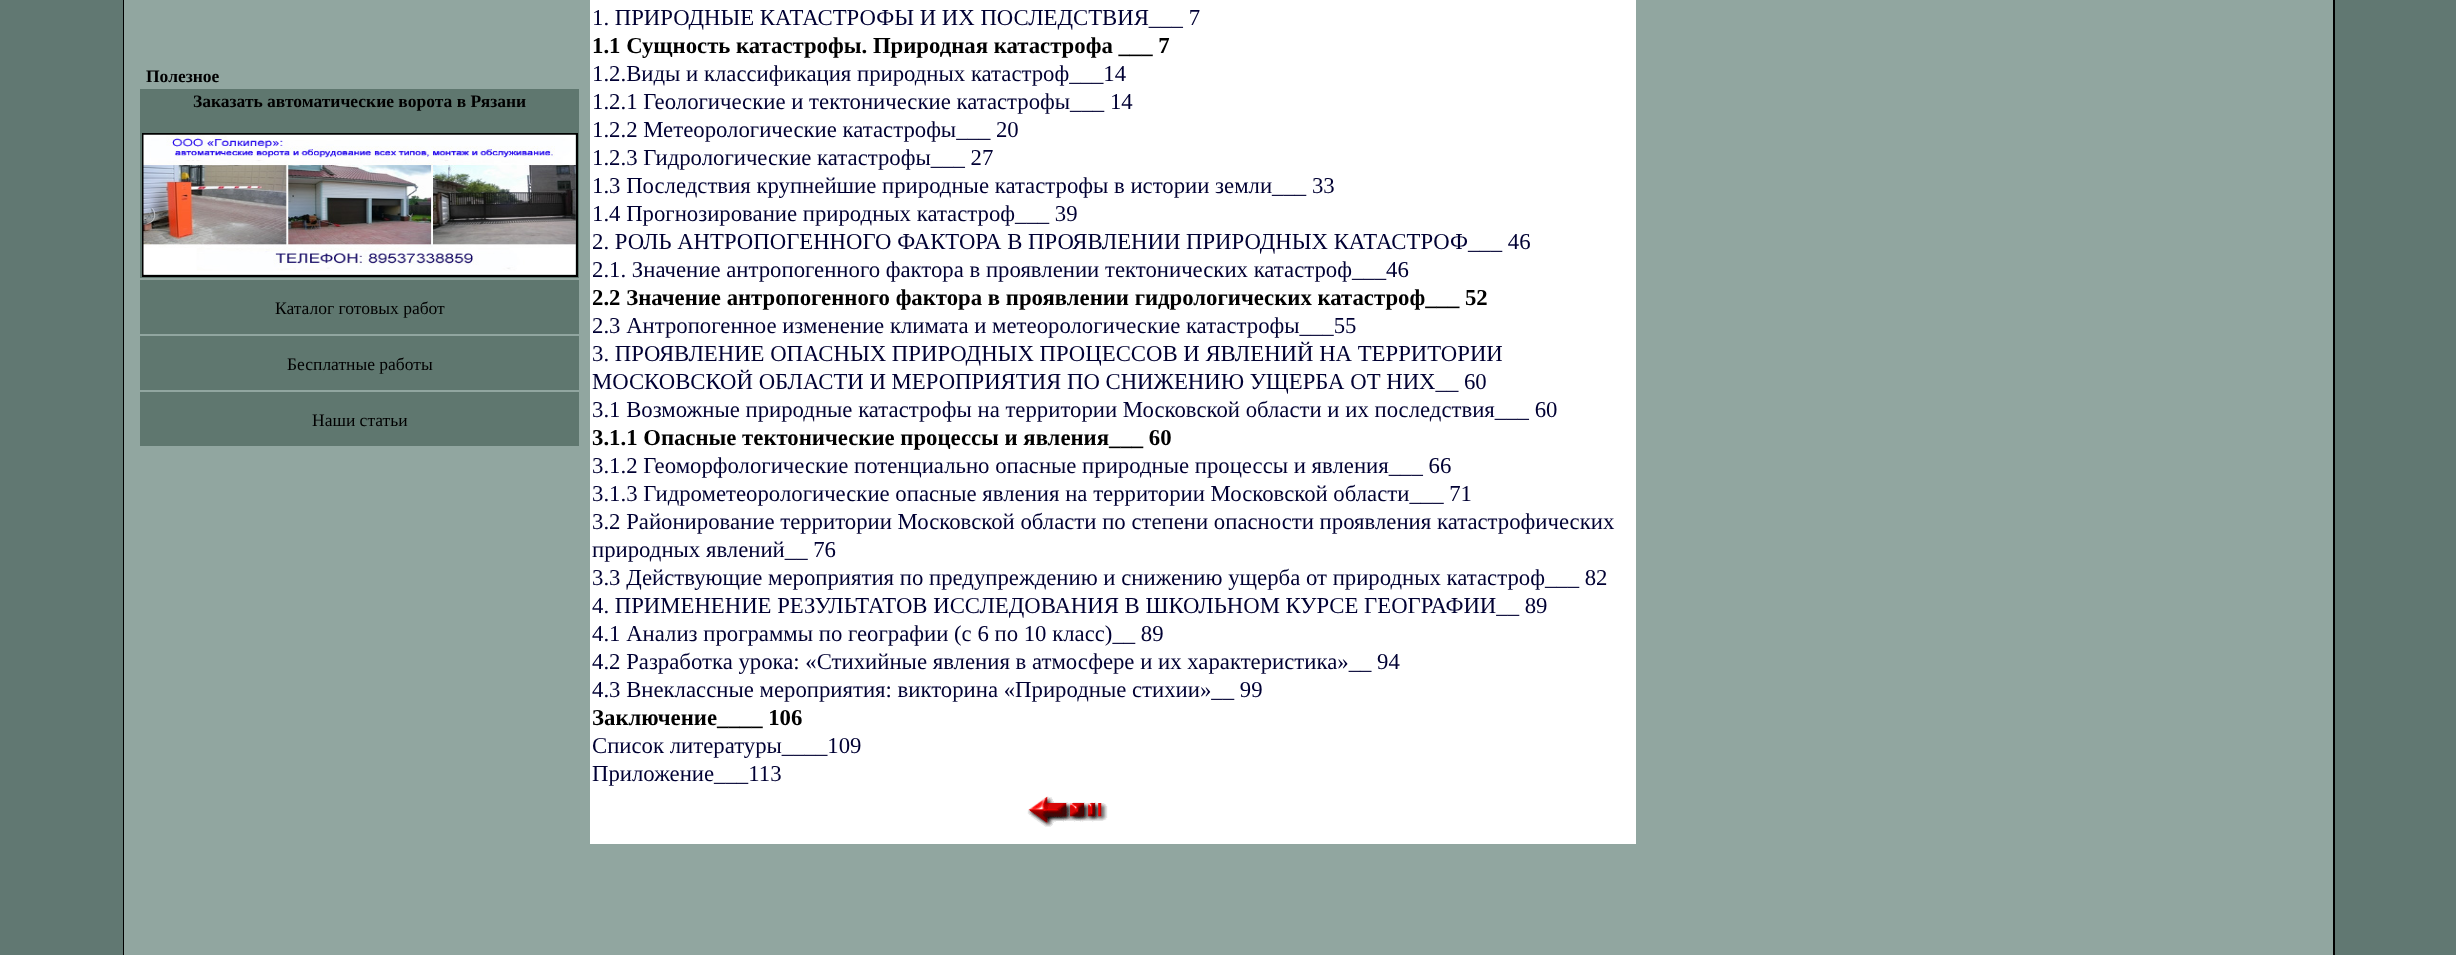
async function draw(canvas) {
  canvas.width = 2456;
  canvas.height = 955;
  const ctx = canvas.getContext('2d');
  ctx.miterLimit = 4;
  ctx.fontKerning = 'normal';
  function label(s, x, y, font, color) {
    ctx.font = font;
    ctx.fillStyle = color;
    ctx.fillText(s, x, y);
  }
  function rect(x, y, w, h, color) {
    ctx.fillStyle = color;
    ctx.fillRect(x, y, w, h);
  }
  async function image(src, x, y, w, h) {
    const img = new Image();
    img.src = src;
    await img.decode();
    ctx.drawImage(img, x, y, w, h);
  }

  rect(0, 0, 2456, 955, '#617872');
  ctx.strokeStyle = '#000';
  ctx.lineWidth = 2;
  ctx.strokeRect(124, -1, 2210, 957);
  rect(124, 0, 2209, 955, '#91a6a0');
  label('Полезное', 146, 82, 'bold 17.5px Liberation Serif', '#000');
  rect(140, 89, 439, 189, '#5f776f');
  label('Заказать автоматические ворота в Рязани', 193, 107, 'bold 17.5px Liberation Serif', '#000');
  ctx.strokeRect(143, 134, 434, 142);
  await image('assets/img1.png', 143, 134, 433, 141);
  rect(140, 280, 439, 54, '#5f776f');
  label('Каталог готовых работ', 275, 314, '17.5px Liberation Serif', '#000');
  rect(140, 336, 439, 54, '#5f776f');
  label('Бесплатные работы', 287, 370, '17.5px Liberation Serif', '#000');
  rect(140, 392, 439, 54, '#5f776f');
  label('Наши статьи', 312, 426, '17.5px Liberation Serif', '#000');
  rect(590, 0, 1046, 844, '#fff');
  label('1. ПРИРОДНЫЕ КАТАСТРОФЫ И ИХ ПОСЛЕДСТВИЯ___ 7', 592, 25, '22.75px Liberation Serif', '#003');
  label('1.1 Сущность катастрофы. Природная катастрофа ___ 7', 592, 53, 'bold 22.75px Liberation Serif', '#000');
  label('1.2.Виды и классификация природных катастроф___14', 592, 81, '22.75px Liberation Serif', '#003');
  label('1.2.1 Геологические и тектонические катастрофы___ 14', 592, 109, '22.75px Liberation Serif', '#003');
  label('1.2.2 Метеорологические катастрофы___ 20', 592, 137, '22.75px Liberation Serif', '#003');
  label('1.2.3 Гидрологические катастрофы___ 27', 592, 165, '22.75px Liberation Serif', '#003');
  label('1.3 Последствия крупнейшие природные катастрофы в истории земли___ 33', 592, 193, '22.75px Liberation Serif', '#003');
  label('1.4 Прогнозирование природных катастроф___ 39', 592, 221, '22.75px Liberation Serif', '#003');
  label('2. РОЛЬ АНТРОПОГЕННОГО ФАКТОРА В ПРОЯВЛЕНИИ ПРИРОДНЫХ КАТАСТРОФ___ 46', 592, 249, '22.75px Liberation Serif', '#003');
  label('2.1. Значение антропогенного фактора в проявлении тектонических катастроф___46', 592, 277, '22.75px Liberation Serif', '#003');
  label('2.2 Значение антропогенного фактора в проявлении гидрологических катастроф___ 52', 592, 305, 'bold 22.75px Liberation Serif', '#000');
  label('2.3 Антропогенное изменение климата и метеорологические катастрофы___55', 592, 333, '22.75px Liberation Serif', '#003');
  label('3. ПРОЯВЛЕНИЕ ОПАСНЫХ ПРИРОДНЫХ ПРОЦЕССОВ И ЯВЛЕНИЙ НА ТЕРРИТОРИИ', 592, 361, '22.75px Liberation Serif', '#003');
  label('МОСКОВСКОЙ ОБЛАСТИ И МЕРОПРИЯТИЯ ПО СНИЖЕНИЮ УЩЕРБА ОТ НИХ__ 60', 592, 389, '22.75px Liberation Serif', '#003');
  label('3.1 Возможные природные катастрофы на территории Московской области и их последствия___ 60', 592, 417, '22.75px Liberation Serif', '#003');
  label('3.1.1 Опасные тектонические процессы и явления___ 60', 592, 445, 'bold 22.75px Liberation Serif', '#000');
  label('3.1.2 Геоморфологические потенциально опасные природные процессы и явления___ 66', 592, 473, '22.75px Liberation Serif', '#003');
  label('3.1.3 Гидрометеорологические опасные явления на территории Московской области___ 71', 592, 501, '22.75px Liberation Serif', '#003');
  label('3.2 Районирование территории Московской области по степени опасности проявления катастрофических', 592, 529, '22.75px Liberation Serif', '#003');
  label('природных явлений__ 76', 592, 557, '22.75px Liberation Serif', '#003');
  label('3.3 Действующие мероприятия по предупреждению и снижению ущерба от природных катастроф___ 82', 592, 585, '22.75px Liberation Serif', '#003');
  label('4. ПРИМЕНЕНИЕ РЕЗУЛЬТАТОВ ИССЛЕДОВАНИЯ В ШКОЛЬНОМ КУРСЕ ГЕОГРАФИИ__ 89', 592, 613, '22.75px Liberation Serif', '#003');
  label('4.1 Анализ программы по географии (с 6 по 10 класс)__ 89', 592, 641, '22.75px Liberation Serif', '#003');
  label('4.2 Разработка урока: «Стихийные явления в атмосфере и их характеристика»__ 94', 592, 669, '22.75px Liberation Serif', '#003');
  label('4.3 Внеклассные мероприятия: викторина «Природные стихии»__ 99', 592, 697, '22.75px Liberation Serif', '#003');
  label('Заключение____ 106', 592, 725, 'bold 22.75px Liberation Serif', '#000');
  label('Список литературы____109', 592, 753, '22.75px Liberation Serif', '#003');
  label('Приложение___113', 592, 781, '22.75px Liberation Serif', '#003');
  await image('assets/img2.png', 1027, 796, 81, 31);
}

draw(document.querySelector('canvas'));
